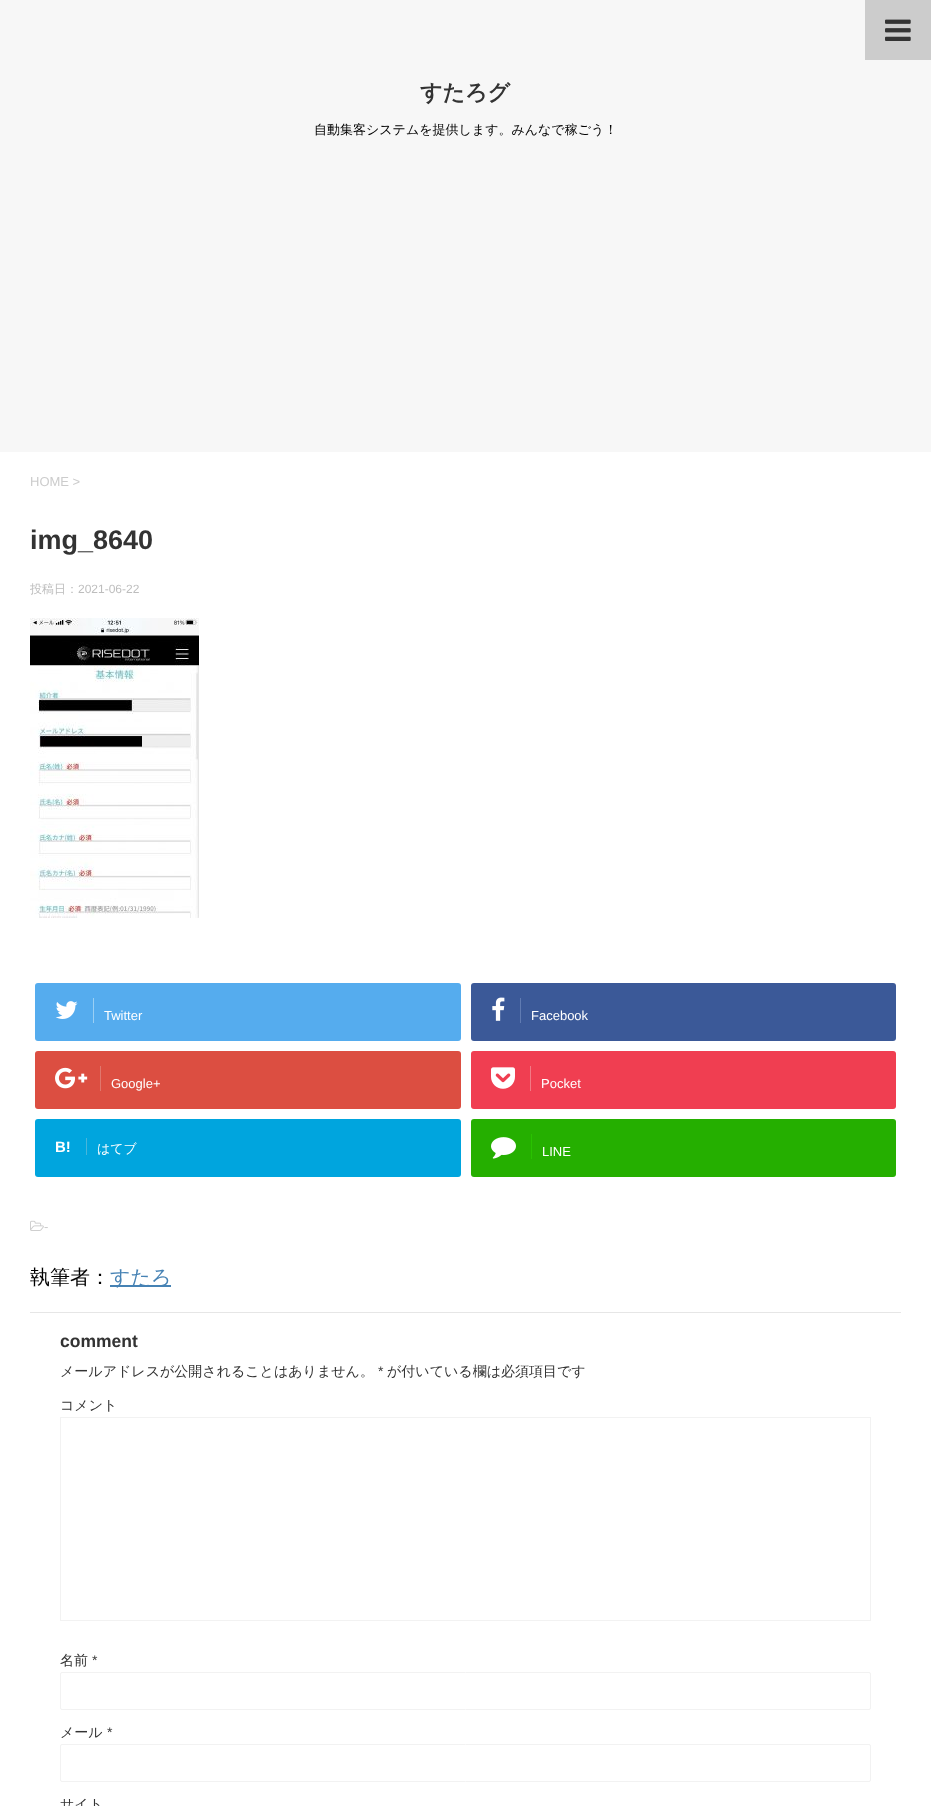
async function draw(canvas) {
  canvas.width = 931;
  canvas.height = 1806;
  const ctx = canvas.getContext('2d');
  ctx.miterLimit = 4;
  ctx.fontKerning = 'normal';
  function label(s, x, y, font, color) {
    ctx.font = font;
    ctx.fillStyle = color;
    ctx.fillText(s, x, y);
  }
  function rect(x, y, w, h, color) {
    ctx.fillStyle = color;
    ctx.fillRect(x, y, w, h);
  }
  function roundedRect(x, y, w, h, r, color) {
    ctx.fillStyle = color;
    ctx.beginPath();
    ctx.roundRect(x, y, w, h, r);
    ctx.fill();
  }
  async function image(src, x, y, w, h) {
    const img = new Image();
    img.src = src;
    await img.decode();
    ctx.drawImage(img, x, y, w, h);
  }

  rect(0, 0, 931, 1806, '#f7f7f7');
  rect(865, 0, 66, 60, '#ccc');
  await image('assets/img1.png', 885, 19, 26, 22);
  label('すたろグ', 420, 100, 'bold 22px WenQuanYi Zen Hei', '#333');
  label('自動集客システムを提供します。みんなで稼ごう！', 314, 134, '500 13px WenQuanYi Zen Hei', '#000');
  rect(0, 452, 931, 1354, '#fff');
  label('HOME >', 30, 486, '13px Liberation Sans', '#ccc');
  label('img_8640', 30, 549, 'bold 27px Liberation Sans', '#333');
  label('投稿日：', 30, 593, '500 12px WenQuanYi Zen Hei', '#bdbdbd');
  label('2021-06-22', 78, 593, '12px Liberation Sans', '#bdbdbd');
  await image('assets/img2.png', 30, 618, 169, 300);
  roundedRect(35, 983, 426, 58, 3, '#55acee');
  rect(93, 998, 1, 25, '#9acff4');
  await image('assets/img3.png', 55, 1001, 23, 18);
  label('Twitter', 104, 1020, '13px Liberation Sans', '#fff');
  roundedRect(471, 983, 425, 58, 3, '#3b5998');
  rect(520, 998, 1, 25, '#607bb2');
  await image('assets/img4.png', 492, 997, 13, 24);
  label('Facebook', 531, 1020, '13px Liberation Sans', '#fff');
  roundedRect(35, 1051, 426, 58, 3, '#dc4e41');
  rect(100, 1066, 1, 25, '#e0776d');
  await image('assets/img5.png', 55, 1067, 33, 22);
  label('Google+', 111, 1088, '13px Liberation Sans', '#fff');
  roundedRect(471, 1051, 425, 58, 3, '#f03e51');
  rect(530, 1066, 1, 25, '#f27985');
  await image('assets/img6.png', 491, 1067, 24, 22);
  label('Pocket', 541, 1088, '13px Liberation Sans', '#fff');
  roundedRect(35, 1119, 426, 58, 3, '#00a5de');
  label('B!', 55, 1152, 'bold 15px Liberation Sans', '#fff');
  rect(86, 1138, 1, 17, '#48b6db');
  label('はてブ', 97, 1153, '500 13px WenQuanYi Zen Hei', '#fff');
  roundedRect(471, 1119, 425, 58, 3, '#25af00');
  rect(531, 1134, 1, 25, '#29c200');
  await image('assets/img7.png', 491, 1137, 25, 22);
  label('LINE', 542, 1156, '13px Liberation Sans', '#fff');
  await image('assets/img8.png', 30, 1220, 14, 11);
  label('-', 44, 1231, '13px Liberation Sans', '#ccc');
  label('執筆者：', 30, 1284, '500 20px WenQuanYi Zen Hei', '#000');
  rect(110, 1285, 61, 2, '#4682b4');
  label('すたろ', 110, 1284, '500 20px WenQuanYi Zen Hei', '#4682b4');
  rect(30, 1312, 871, 1, '#e6e6e6');
  label('comment', 60, 1347, 'bold 17.5px Liberation Sans', '#333');
  label('メールアドレスが公開されることはありません。', 60, 1376, '500 14px WenQuanYi Zen Hei', '#333');
  label('*', 378, 1376, '14px Liberation Sans', '#333');
  label('が付いている欄は必須項目です', 387, 1376, '500 14px WenQuanYi Zen Hei', '#333');
  label('コメント', 60, 1410, '500 14px WenQuanYi Zen Hei', '#333');
  ctx.strokeStyle = '#f2f2f2';
  ctx.strokeRect(60.5, 1417.5, 810, 203);
  label('名前', 60, 1665, '500 14px WenQuanYi Zen Hei', '#333');
  label('*', 92, 1665, '14px Liberation Sans', '#333');
  ctx.beginPath();
  ctx.roundRect(60.5, 1672.5, 810, 37, 1.5);
  ctx.stroke();
  label('メール', 60, 1737, '500 14px WenQuanYi Zen Hei', '#333');
  label('*', 107, 1737, '14px Liberation Sans', '#333');
  ctx.beginPath();
  ctx.roundRect(60.5, 1744.5, 810, 37, 1.5);
  ctx.stroke();
  label('サイト', 60, 1809, '500 14px WenQuanYi Zen Hei', '#333');
}

draw(document.querySelector('canvas'));
